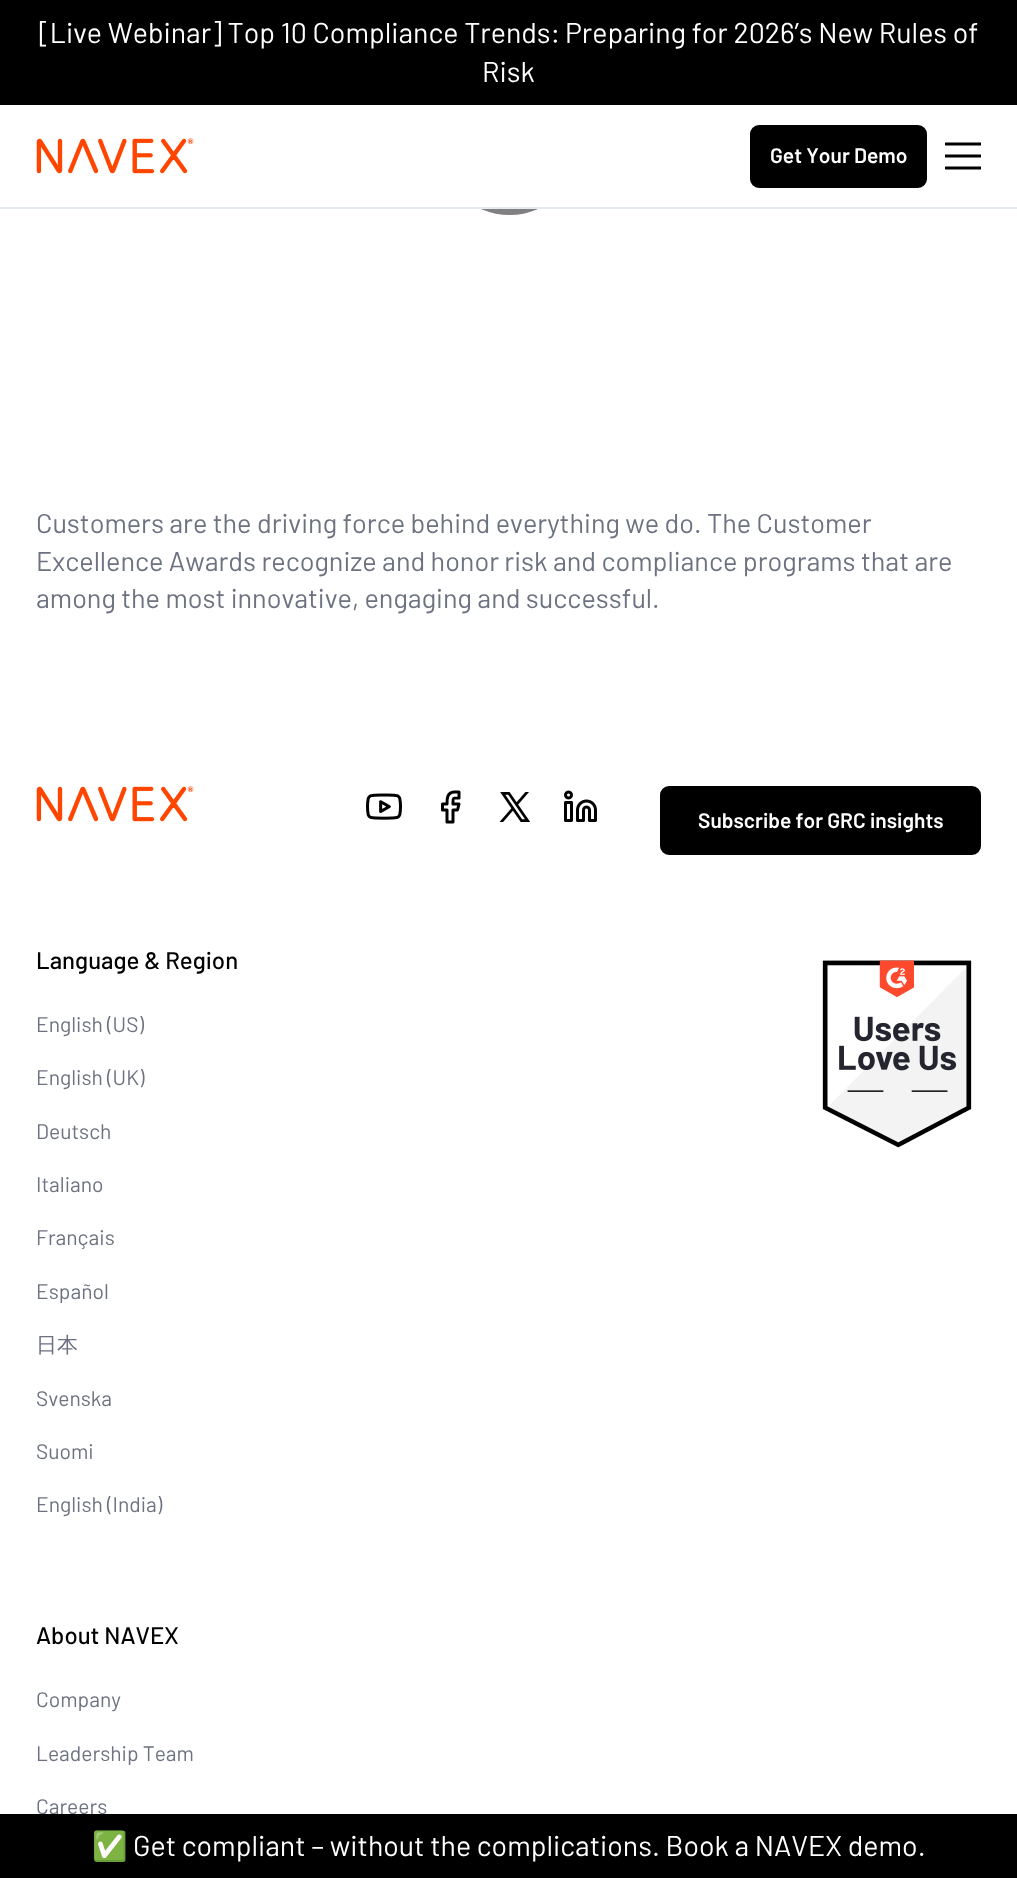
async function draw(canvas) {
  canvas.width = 1017;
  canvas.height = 1878;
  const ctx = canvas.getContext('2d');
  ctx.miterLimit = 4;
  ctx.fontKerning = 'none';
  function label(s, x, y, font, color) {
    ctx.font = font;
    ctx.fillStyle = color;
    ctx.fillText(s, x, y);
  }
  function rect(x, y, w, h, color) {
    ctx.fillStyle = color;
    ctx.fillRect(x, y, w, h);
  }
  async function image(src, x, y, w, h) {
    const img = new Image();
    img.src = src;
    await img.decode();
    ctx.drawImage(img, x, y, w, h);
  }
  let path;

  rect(0, 0, 1017, 1878, '#fff');
  ctx.fillStyle = '#808080';
  ctx.beginPath();
  ctx.arc(509.5, 143.5, 71.5, 0, 2 * Math.PI);
  ctx.fill();
  rect(0, 0, 1017, 105, '#000');
  label('[Live Webinar] Top 10 Compliance Trends:', 39, 43, '28.5px Barlow', '#fff');
  label('Preparing for 2026’s New Rules of', 565, 43, '28.5px Barlow', '#fff');
  label('Risk', 482, 82, '28.5px Barlow', '#fff');
  rect(438, 105, 143, 102, '#fff');
  rect(0, 207, 1017, 2, '#e5eaf1');
  await image('assets/img1.png', 36, 138, 158, 36);
  ctx.fillStyle = '#000';
  ctx.beginPath();
  ctx.roundRect(751, 126, 175, 61, 8);
  ctx.fill();
  ctx.strokeStyle = '#000';
  ctx.lineWidth = 2;
  ctx.stroke();
  label('Get Your Demo', 770, 163, '600 21px Barlow', '#fff');
  path = new Path2D('M945 144H981M945 156H981M945 168H981');
  ctx.lineWidth = 3;
  ctx.stroke(path);
  label('Customers are the driving force behind everything we do. The Customer', 36, 533, '27px Barlow', '#6d7280');
  label('Excellence Awards recognize and honor risk and compliance programs that are', 36, 571, '27px Barlow', '#6d7280');
  label('among the most innovative, engaging and successful.', 36, 608, '27px Barlow', '#6d7280');
  await image('assets/img1.png', 36, 786, 158, 36);
  await image('assets/img2.png', 366, 793, 36, 27);
  path = new Path2D('M459 792H454C447 792.5 447 799 447 804H442.5V810H447V822H453V810H457.5L459 804H453C453 797.5 452.5 798 459 798Z');
  ctx.lineCap = 'round';
  ctx.lineJoin = 'round';
  ctx.stroke(path);
  await image('assets/img3.png', 499, 792, 32, 30);
  await image('assets/img4.png', 564, 790, 33, 32);
  ctx.fillStyle = '#000';
  ctx.beginPath();
  ctx.roundRect(661, 787, 319, 67, 8);
  ctx.fill();
  ctx.lineWidth = 2;
  ctx.lineJoin = 'miter';
  ctx.stroke();
  label('Subscribe for GRC insights', 698, 828, '600 21px Barlow', '#fff');
  label('Language & Region', 36, 969, '500 24px Barlow', '#000');
  label('English (US)', 36, 1032, '21px Barlow', '#6d7280');
  label('English (UK)', 36, 1085, '21px Barlow', '#6d7280');
  label('Deutsch', 36, 1139, '21px Barlow', '#6d7280');
  label('Italiano', 36, 1192, '21px Barlow', '#6d7280');
  label('Français', 36, 1245, '21px Barlow', '#6d7280');
  label('Español', 36, 1299, '21px Barlow', '#6d7280');
  label('日本', 36, 1352, '500 21px WenQuanYi Zen Hei', '#6d7280');
  label('Svenska', 36, 1406, '21px Barlow', '#6d7280');
  label('Suomi', 36, 1459, '21px Barlow', '#6d7280');
  label('English (India)', 36, 1512, '21px Barlow', '#6d7280');
  label('About NAVEX', 36, 1644, '500 24px Barlow', '#000');
  label('Company', 36, 1707, '21px Barlow', '#6d7280');
  label('Leadership Team', 36, 1761, '21px Barlow', '#6d7280');
  label('Careers', 36, 1814, '21px Barlow', '#6d7280');
  await image('assets/img5.png', 822, 960, 150, 188);
  rect(0, 1814, 1017, 64, '#000');
  label('✅', 92, 1856, '28.5px Noto Color Emoji', '#fff');
  label('Get compliant – without the complications. Book a NAVEX demo.', 133, 1856, '28.5px Barlow', '#fff');
}

draw(document.querySelector('canvas'));
